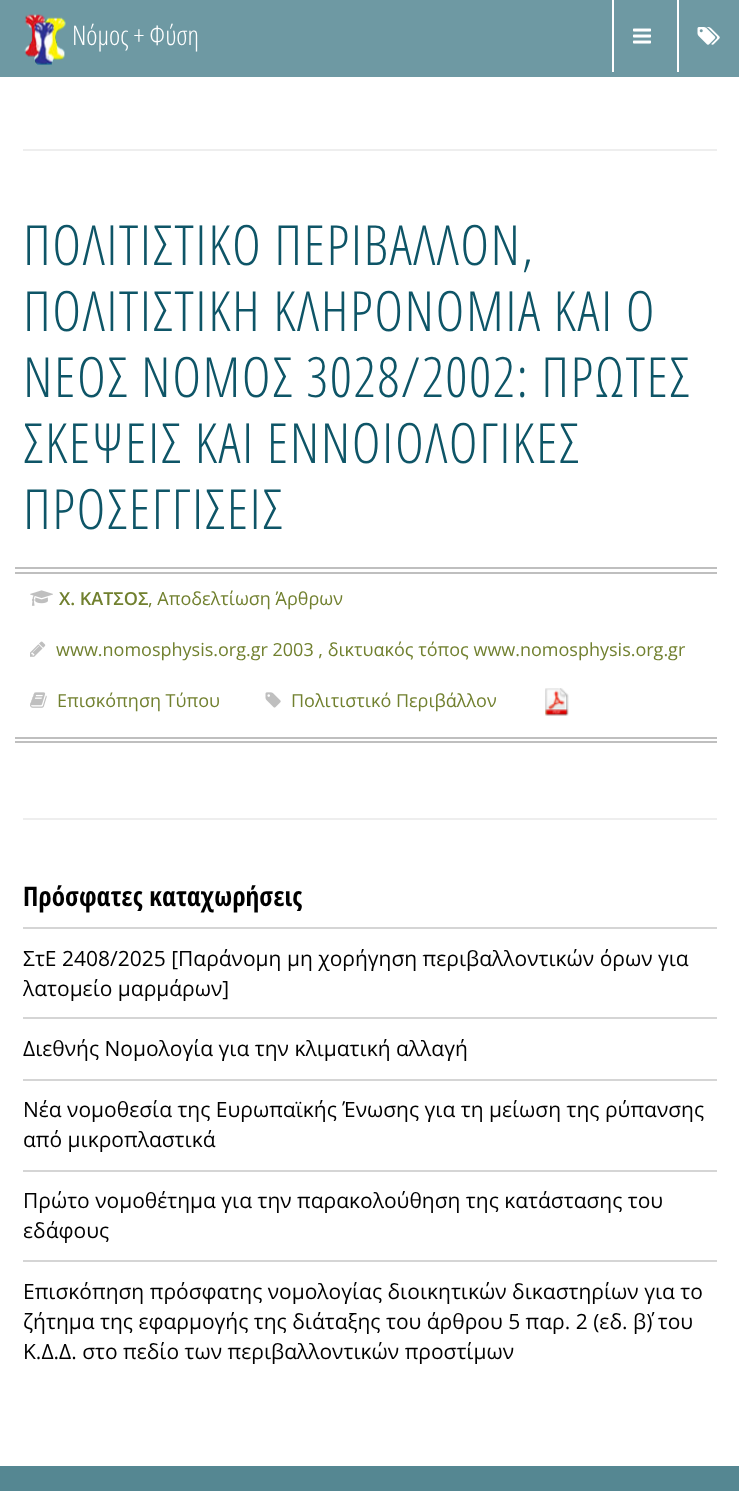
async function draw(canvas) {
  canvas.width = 739;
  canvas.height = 1491;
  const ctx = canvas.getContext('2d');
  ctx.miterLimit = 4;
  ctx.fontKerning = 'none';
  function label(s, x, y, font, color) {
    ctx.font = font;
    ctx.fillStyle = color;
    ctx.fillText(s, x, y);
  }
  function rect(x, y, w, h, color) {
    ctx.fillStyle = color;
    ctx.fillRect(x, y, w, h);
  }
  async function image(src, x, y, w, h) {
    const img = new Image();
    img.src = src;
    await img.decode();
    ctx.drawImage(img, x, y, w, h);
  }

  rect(0, 0, 739, 1491, '#fff');
  rect(0, 0, 739, 77, '#6e99a3');
  await image('assets/img1.png', 24, 14, 42, 51);
  label('Νόμος + Φύση', 72, 45, '300 27px Open Sans Condensed', '#fff');
  rect(612, 0, 2, 72, '#fff');
  await image('assets/img2.png', 633, 28, 18, 16);
  rect(677, 0, 2, 72, '#fff');
  await image('assets/img3.png', 697, 27, 23, 18);
  rect(23, 149, 694, 2, '#eee');
  ctx.letterSpacing = '1.5px';
  label('ΠΟΛΙΤΙΣΤΙΚΟ ΠΕΡΙΒΑΛΛΟΝ,', 23, 265, '300 55.5px Open Sans Condensed', '#0e5567');
  label('ΠΟΛΙΤΙΣΤΙΚΗ ΚΛΗΡΟΝΟΜΙΑ ΚΑΙ Ο', 23, 331, '300 55.5px Open Sans Condensed', '#0e5567');
  label('ΝΕΟΣ ΝΟΜΟΣ 3028/2002: ΠΡΩΤΕΣ', 23, 397, '300 55.5px Open Sans Condensed', '#0e5567');
  label('ΣΚΕΨΕΙΣ ΚΑΙ ΕΝΝΟΙΟΛΟΓΙΚΕΣ', 23, 463, '300 55.5px Open Sans Condensed', '#0e5567');
  label('ΠΡΟΣΕΓΓΙΣΕΙΣ', 23, 529, '300 55.5px Open Sans Condensed', '#0e5567');
  rect(15, 567, 702, 2, '#bfbfbf');
  rect(15, 572, 702, 2, '#bfbfbf');
  rect(15, 737, 702, 2, '#bfbfbf');
  rect(15, 741, 702, 2, '#bfbfbf');
  await image('assets/img4.png', 30, 590, 23, 16);
  ctx.letterSpacing = '0px';
  label('Χ. ΚΑΤΣΟΣ', 59, 605, '600 18px Open Sans', '#71802f');
  label(', Αποδελτίωση Άρθρων', 148, 605, '18px Open Sans', '#71802f');
  await image('assets/img5.png', 30, 641, 16, 16);
  label('www.nomosphysis.org.gr 2003 , δικτυακός τόπος www.nomosphysis.org.gr', 56, 656, '18px Open Sans', '#71802f');
  await image('assets/img6.png', 30, 692, 17, 16);
  label('Επισκόπηση Τύπου', 57, 707, '18px Open Sans', '#71802f');
  await image('assets/img7.png', 265, 692, 16, 16);
  label('Πολιτιστικό Περιβάλλον', 291, 707, '18px Open Sans', '#71802f');
  await image('assets/img8.png', 545, 688, 24, 28);
  rect(23, 818, 694, 2, '#eee');
  label('Πρόσφατες καταχωρήσεις', 23, 906, 'bold 27px Open Sans Condensed', '#000');
  rect(23, 927, 694, 2, '#d5d5d5');
  label('ΣτΕ 2408/2025 [Παράνομη μη χορήγηση περιβαλλοντικών όρων για', 23, 966, '21px Open Sans', '#000');
  label('λατομείο μαρμάρων]', 23, 996, '21px Open Sans', '#000');
  rect(23, 1017, 694, 2, '#d5d5d5');
  label('Διεθνής Νομολογία για την κλιματική αλλαγή', 23, 1056, '21px Open Sans', '#000');
  rect(23, 1079, 694, 2, '#d5d5d5');
  label('Νέα νομοθεσία της Ευρωπαϊκής Ένωσης για τη μείωση της ρύπανσης', 23, 1117, '21px Open Sans', '#000');
  label('από μικροπλαστικά', 23, 1147, '21px Open Sans', '#000');
  rect(23, 1170, 694, 2, '#d5d5d5');
  label('Πρώτο νομοθέτημα για την παρακολούθηση της κατάστασης του', 23, 1208, '21px Open Sans', '#000');
  label('εδάφους', 23, 1238, '21px Open Sans', '#000');
  rect(23, 1260, 694, 2, '#d5d5d5');
  label('Επισκόπηση πρόσφατης νομολογίας διοικητικών δικαστηρίων για το', 23, 1299, '21px Open Sans', '#000');
  label('ζήτημα της εφαρμογής της διάταξης του άρθρου 5 παρ. 2 (εδ. β΄) του', 23, 1329, '21px Open Sans', '#000');
  label('Κ.Δ.Δ. στο πεδίο των περιβαλλοντικών προστίμων', 23, 1359, '21px Open Sans', '#000');
  rect(0, 1466, 739, 25, '#558792');
}

draw(document.querySelector('canvas'));
